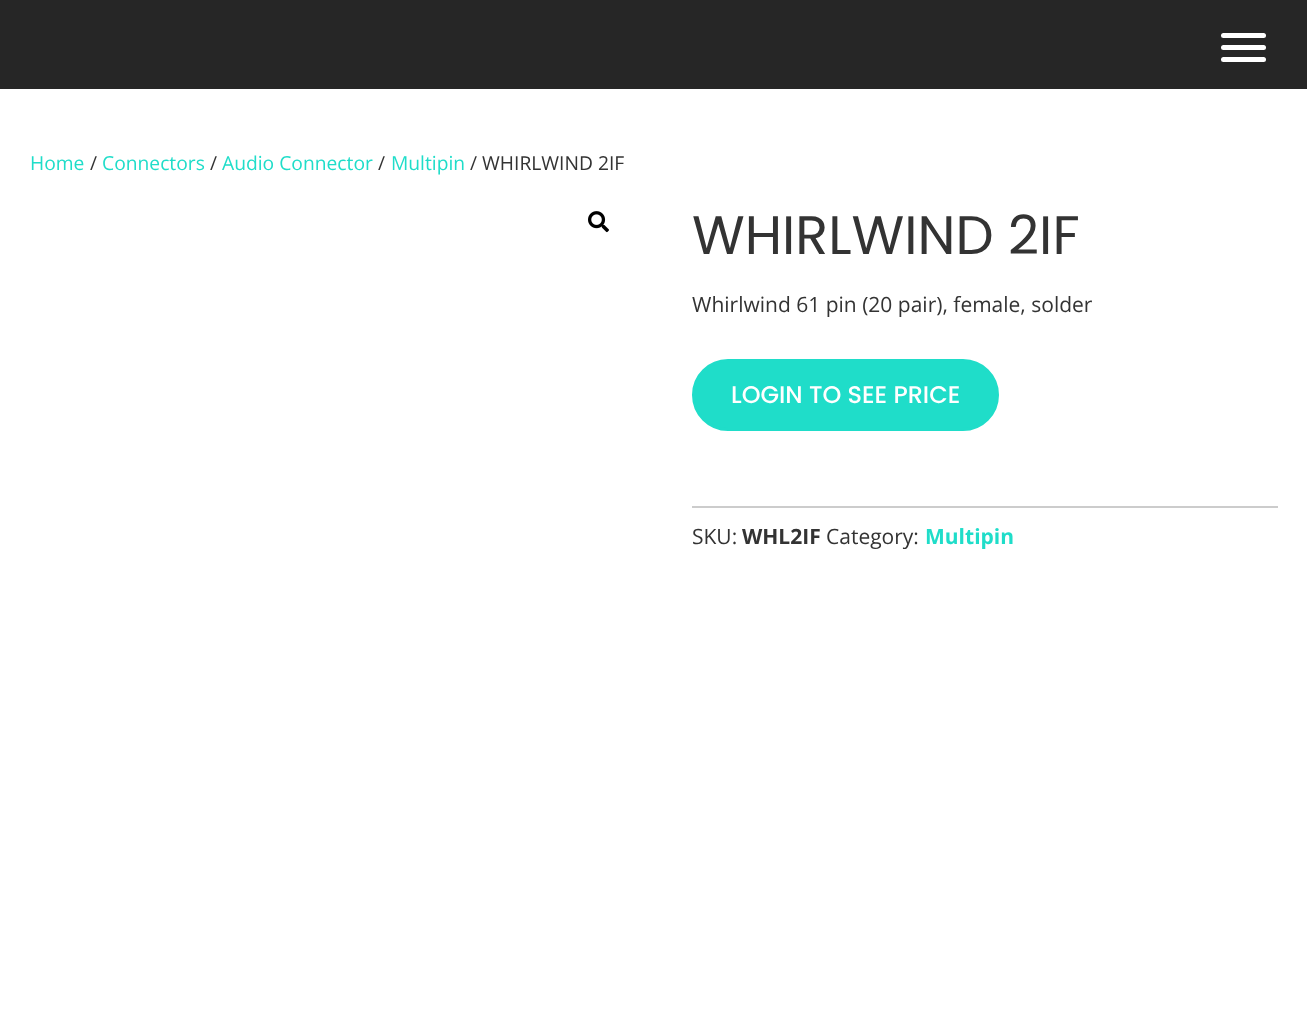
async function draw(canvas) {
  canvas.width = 1307;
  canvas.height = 1035;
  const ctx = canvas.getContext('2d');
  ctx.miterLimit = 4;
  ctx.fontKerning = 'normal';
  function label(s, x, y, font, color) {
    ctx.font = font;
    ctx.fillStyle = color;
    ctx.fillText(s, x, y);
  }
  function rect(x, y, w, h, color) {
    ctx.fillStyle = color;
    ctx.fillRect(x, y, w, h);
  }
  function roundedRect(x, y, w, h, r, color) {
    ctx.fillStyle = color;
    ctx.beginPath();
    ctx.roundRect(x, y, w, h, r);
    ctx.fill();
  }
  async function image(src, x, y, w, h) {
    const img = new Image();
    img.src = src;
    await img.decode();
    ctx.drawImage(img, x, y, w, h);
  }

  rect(0, 0, 1307, 1035, '#fff');
  rect(0, 0, 1307, 89, '#262626');
  roundedRect(1221, 45, 45, 5, 2.5, '#fff');
  roundedRect(1221, 33, 45, 5, 2.5, '#fff');
  roundedRect(1221, 57, 45, 5, 2.5, '#fff');
  label('Home', 30, 170, '19.25px Open Sans', '#1fddc9');
  label('/', 90, 170, '19.25px Open Sans', '#333');
  label('Connectors', 102, 170, '19.25px Open Sans', '#1fddc9');
  label('/', 210, 170, '19.25px Open Sans', '#333');
  label('Audio Connector', 222, 170, '19.25px Open Sans', '#1fddc9');
  label('/', 378, 170, '19.25px Open Sans', '#333');
  label('Multipin', 391, 170, '19.25px Open Sans', '#1fddc9');
  label('/ WHIRLWIND 2IF', 470, 170, '19.25px Open Sans', '#333');
  await image('assets/img1.png', 588, 211, 21, 22);
  label('WHIRLWIND 2IF', 692, 254, '54px Poppins', '#333');
  label('Whirlwind 61 pin (20 pair), female, solder', 692, 312, '21px Open Sans', '#333');
  ctx.fillStyle = '#1fddc9';
  ctx.beginPath();
  ctx.roundRect(693.5, 360.5, 304, 69, 34.5);
  ctx.fill();
  ctx.strokeStyle = '#1fddc9';
  ctx.lineWidth = 3;
  ctx.stroke();
  label('LOGIN TO SEE PRICE', 731, 403, '500 24px Poppins', '#fff');
  rect(692, 506, 586, 2, '#ccc');
  label('SKU:', 692, 544, '21px Open Sans', '#333');
  label('WHL2IF', 742, 544, 'bold 21px Open Sans', '#333');
  label('Category:', 826, 544, '21px Open Sans', '#333');
  label('Multipin', 925, 544, 'bold 21px Open Sans', '#1fddc9');
}

draw(document.querySelector('canvas'));
